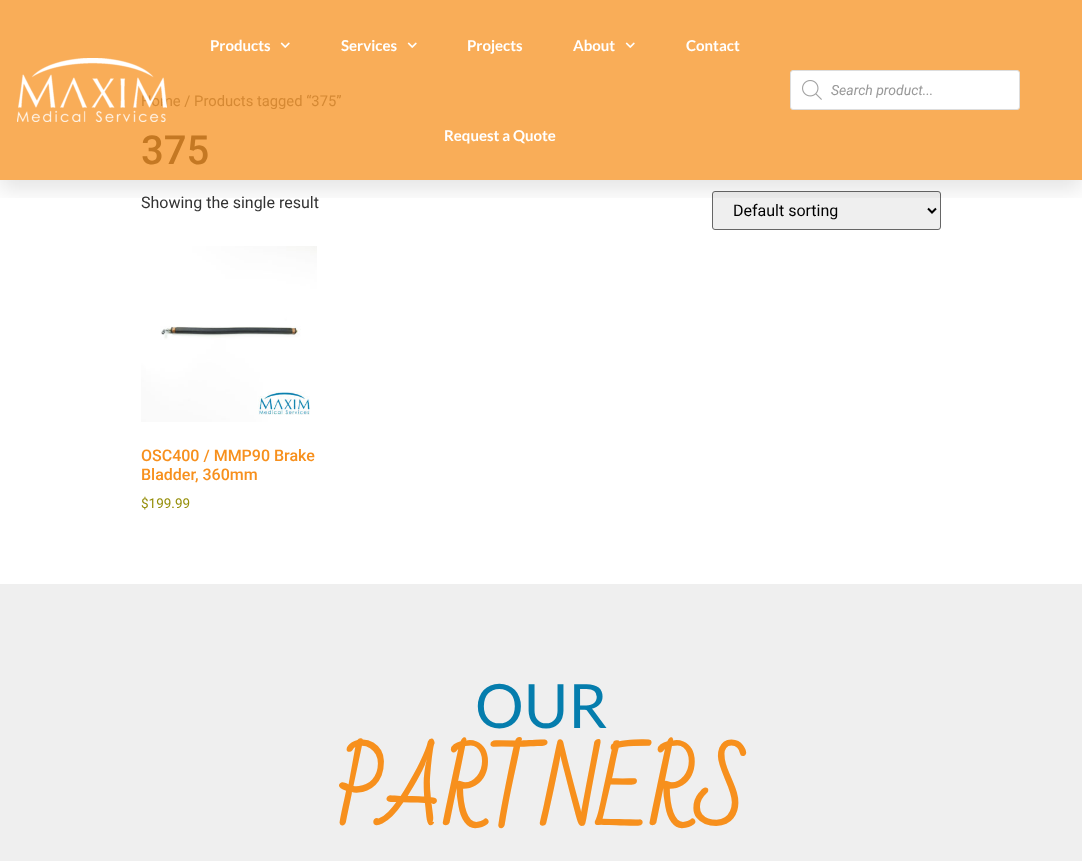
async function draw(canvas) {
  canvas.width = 1082;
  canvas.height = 861;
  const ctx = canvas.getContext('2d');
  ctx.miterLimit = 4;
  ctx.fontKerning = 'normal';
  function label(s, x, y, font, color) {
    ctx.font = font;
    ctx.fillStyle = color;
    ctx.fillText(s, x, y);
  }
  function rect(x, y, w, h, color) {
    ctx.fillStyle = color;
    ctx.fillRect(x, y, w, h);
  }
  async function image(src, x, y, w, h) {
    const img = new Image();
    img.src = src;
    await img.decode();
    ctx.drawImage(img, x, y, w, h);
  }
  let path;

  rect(0, 0, 1082, 861, '#fff');
  rect(0, 0, 1082, 180, '#f9ad58');
  ctx.fillStyle = '#efefef';
  ctx.beginPath();
  ctx.roundRect(712.5, 191.5, 228, 38, 2.5);
  ctx.fill();
  ctx.strokeStyle = '#666';
  ctx.stroke();
  path = new Path2D('M928 208.5L932 212.5L936 208.5');
  ctx.strokeStyle = '#000';
  ctx.lineWidth = 2;
  ctx.stroke(path);
  ctx.save();
  ctx.beginPath();
  ctx.rect(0, 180, 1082, 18);
  ctx.clip();
  ctx.fillStyle = '#0000001a';
  ctx.filter = 'blur(10px)';
  ctx.beginPath();
  ctx.rect(0, 10, 1082, 180);
  ctx.fill();
  ctx.filter = 'none';
  ctx.restore();
  label('Home / Products tagged “375”', 141, 106, '14.75px Roboto', '#d58934');
  await image('assets/img1.png', 17, 58, 150, 64);
  label('Products', 210, 51, 'bold 15px Lato', '#fff');
  await image('assets/img2.png', 280, 42, 10, 6);
  label('Services', 341, 51, 'bold 15px Lato', '#fff');
  await image('assets/img2.png', 407, 42, 10, 6);
  label('Projects', 467, 51, 'bold 15px Lato', '#fff');
  label('About', 573, 51, 'bold 15px Lato', '#fff');
  await image('assets/img2.png', 625, 42, 10, 6);
  label('Contact', 686, 51, 'bold 15px Lato', '#fff');
  label('Request a Quote', 444, 141, 'bold 15px Lato', '#fff');
  ctx.beginPath();
  ctx.roundRect(790.5, 70.5, 229, 39, 2.5);
  ctx.fill();
  ctx.strokeStyle = '#ddd';
  ctx.lineWidth = 1;
  ctx.stroke();
  await image('assets/img3.png', 802, 80, 20, 20);
  label('Search product...', 831, 95, 'italic 14px Roboto', '#999');
  label('375', 141, 164, '500 40px Roboto', '#c47823');
  label('Showing the single result', 141, 208, '16px Roboto', '#333');
  label('Default sorting', 733, 216, '16px Roboto', '#000');
  await image('assets/img4.png', 141, 246, 176, 176);
  label('OSC400 / MMP90 Brake', 141, 461, '500 16px Roboto', '#f7901d');
  label('Bladder, 360mm', 141, 480, '500 16px Roboto', '#f7901d');
  label('$199.99', 141, 508, '13.5px Roboto', '#958e09');
  rect(0, 584, 1082, 277, '#efefef');
  label('OUR', 475, 728, '61px Lato', '#057dad');
  label('PARTNERS', 335, 825, 'bold 86px Bad Script', '#f7901d');
}

draw(document.querySelector('canvas'));
